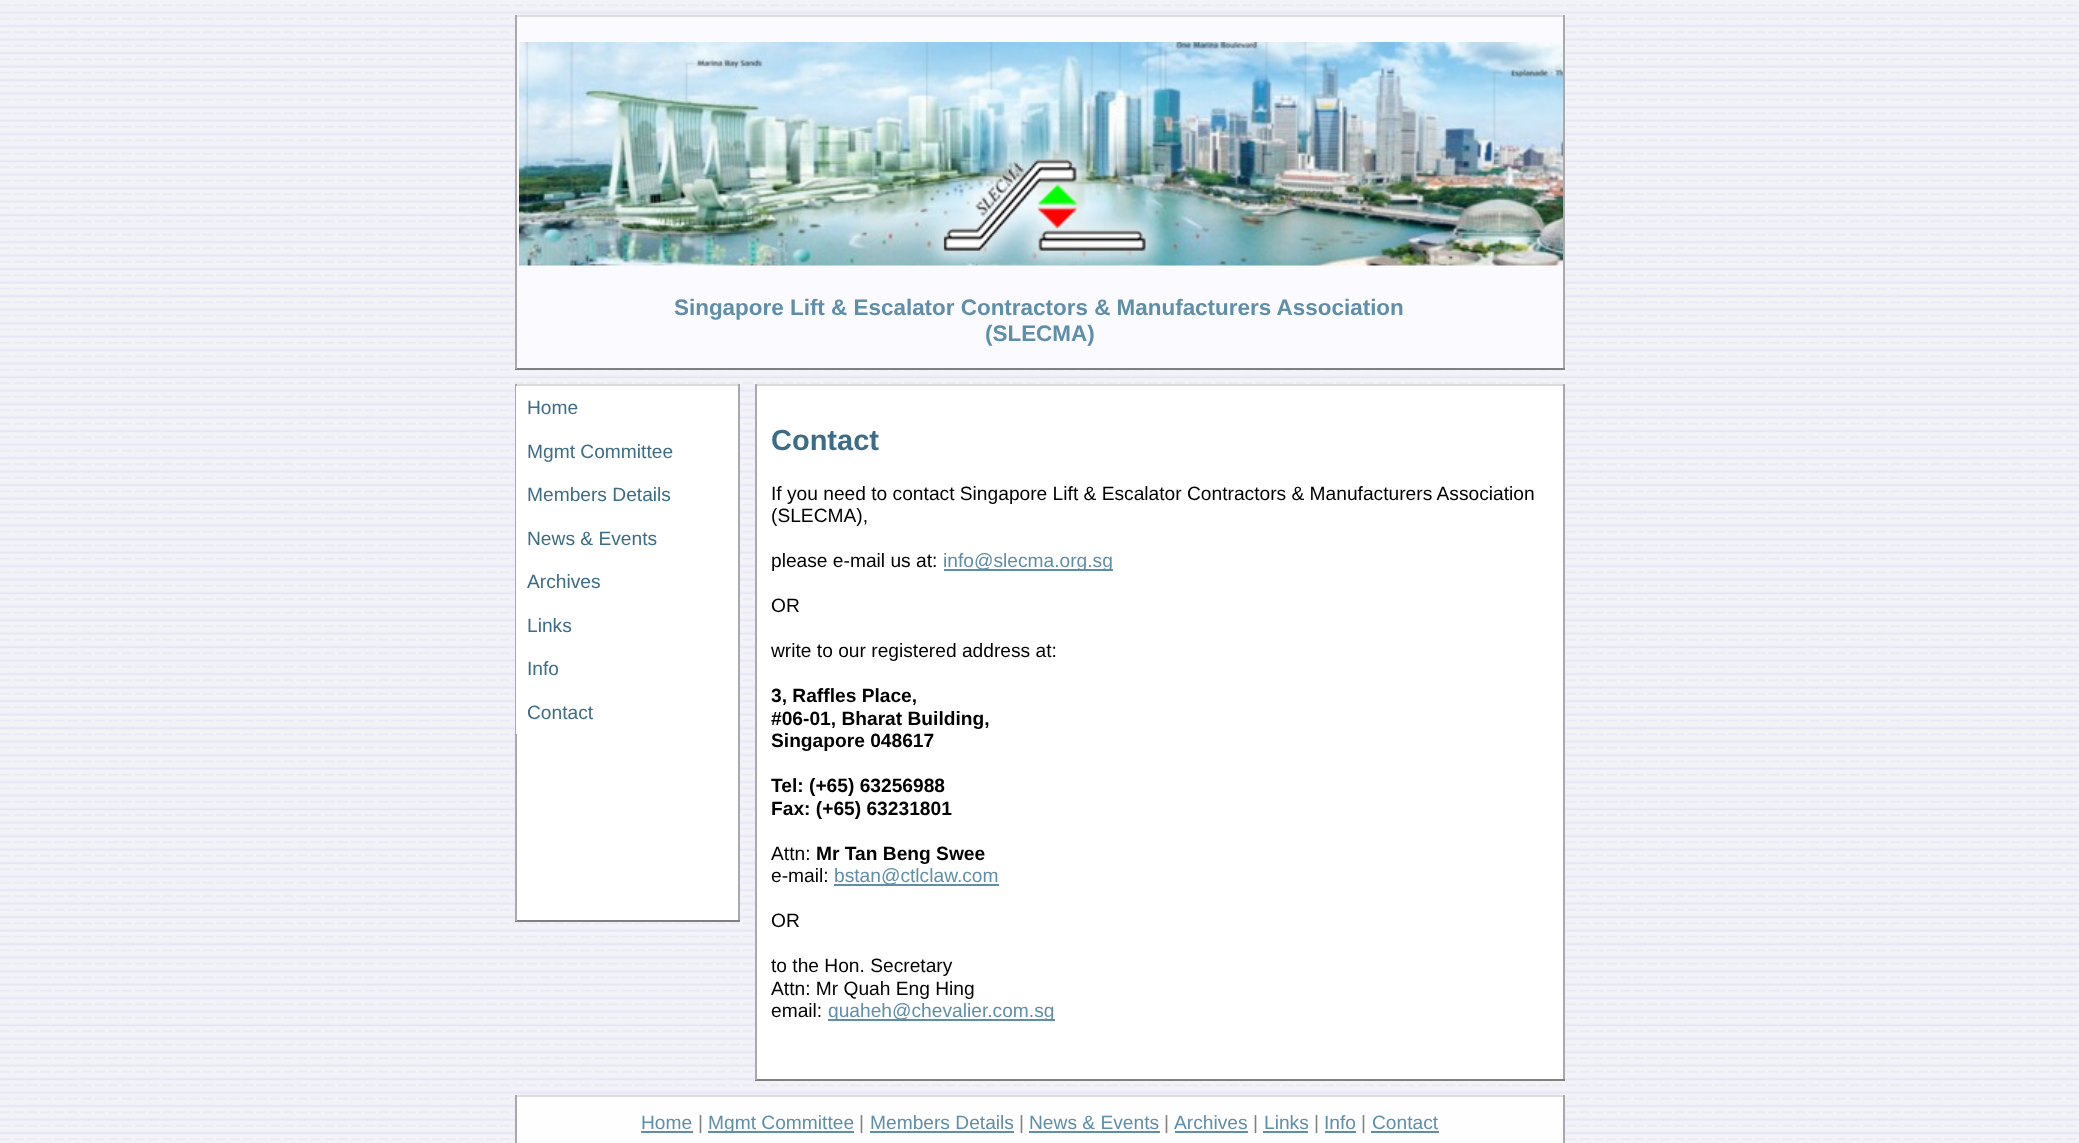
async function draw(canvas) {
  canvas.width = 2079;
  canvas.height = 1143;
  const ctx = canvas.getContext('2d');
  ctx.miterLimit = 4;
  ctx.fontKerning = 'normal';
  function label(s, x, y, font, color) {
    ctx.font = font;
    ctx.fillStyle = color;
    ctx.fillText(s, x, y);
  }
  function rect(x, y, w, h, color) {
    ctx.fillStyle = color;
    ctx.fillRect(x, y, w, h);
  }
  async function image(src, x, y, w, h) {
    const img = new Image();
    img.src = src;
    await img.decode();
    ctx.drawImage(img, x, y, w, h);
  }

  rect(0, 0, 2079, 1143, '#f2f2f7');
  await image('assets/img1.png', 0, 4, 2079, 1136);
  rect(517, 17, 1046, 351, '#fafaff');
  rect(515, 15, 1050, 2, '#dcdcdc');
  rect(1563, 15, 2, 354, '#a9a9a9');
  rect(515, 368, 1050, 2, '#808080');
  rect(515, 15, 2, 354, '#a9a9a9');
  await image('assets/img2.png', 519, 42, 1044, 224);
  label('Singapore Lift & Escalator Contractors & Manufacturers Association', 674, 315, 'bold 22.45px Liberation Sans', '#5f8ea9');
  label('(SLECMA)', 985, 341, 'bold 22.45px Liberation Sans', '#5f8ea9');
  rect(517, 734, 221, 186, '#fff');
  rect(515, 384, 225, 2, '#dcdcdc');
  rect(738, 384, 2, 537, '#a9a9a9');
  rect(515, 920, 225, 2, '#808080');
  rect(515, 384, 2, 537, '#a9a9a9');
  rect(516, 386, 222, 348, '#fff');
  label('Home', 527, 414, '19.2px Liberation Sans', '#3d6c87');
  label('Mgmt Committee', 527, 458, '19.2px Liberation Sans', '#3d6c87');
  label('Members Details', 527, 501, '19.2px Liberation Sans', '#3d6c87');
  label('News & Events', 527, 545, '19.2px Liberation Sans', '#3d6c87');
  label('Archives', 527, 588, '19.2px Liberation Sans', '#3d6c87');
  label('Links', 527, 632, '19.2px Liberation Sans', '#3d6c87');
  label('Info', 527, 675, '19.2px Liberation Sans', '#3d6c87');
  label('Contact', 527, 719, '19.2px Liberation Sans', '#3d6c87');
  rect(757, 386, 806, 693, '#fff');
  rect(755, 384, 810, 2, '#dcdcdc');
  rect(1563, 384, 2, 696, '#a9a9a9');
  rect(755, 1079, 810, 2, '#808080');
  rect(755, 384, 2, 696, '#a9a9a9');
  label('Contact', 771, 450, 'bold 29px Liberation Sans', '#3d6c87');
  label('If you need to contact Singapore Lift & Escalator Contractors & Manufacturers Association', 771, 500, '19.2px Liberation Sans', '#000');
  label('(SLECMA),', 771, 522, '19.2px Liberation Sans', '#000');
  label('please e-mail us at:', 771, 567, '19.2px Liberation Sans', '#000');
  rect(944, 569, 169, 2, '#5f8ea9');
  label('info@slecma.org.sg', 943, 567, '19.2px Liberation Sans', '#5f8ea9');
  label('OR', 771, 612, '19.2px Liberation Sans', '#000');
  label('write to our registered address at:', 771, 657, '19.2px Liberation Sans', '#000');
  label('3, Raffles Place,', 771, 702, 'bold 19.2px Liberation Sans', '#000');
  label('#06-01, Bharat Building,', 771, 725, 'bold 19.2px Liberation Sans', '#000');
  label('Singapore 048617', 771, 747, 'bold 19.2px Liberation Sans', '#000');
  label('Tel: (+65) 63256988', 771, 792, 'bold 19.2px Liberation Sans', '#000');
  label('Fax: (+65) 63231801', 771, 815, 'bold 19.2px Liberation Sans', '#000');
  label('Attn:', 771, 860, '19.2px Liberation Sans', '#000');
  label('Mr Tan Beng Swee', 816, 860, 'bold 19.2px Liberation Sans', '#000');
  label('e-mail:', 771, 882, '19.2px Liberation Sans', '#000');
  rect(834, 884, 165, 2, '#5f8ea9');
  label('bstan@ctlclaw.com', 834, 882, '19.2px Liberation Sans', '#5f8ea9');
  label('OR', 771, 927, '19.2px Liberation Sans', '#000');
  label('to the Hon. Secretary', 771, 972, '19.2px Liberation Sans', '#000');
  label('Attn: Mr Quah Eng Hing', 771, 995, '19.2px Liberation Sans', '#000');
  label('email:', 771, 1017, '19.2px Liberation Sans', '#000');
  rect(828, 1019, 227, 2, '#5f8ea9');
  label('quaheh@chevalier.com.sg', 828, 1017, '19.2px Liberation Sans', '#5f8ea9');
  rect(517, 1097, 1046, 46, '#fefeff');
  rect(515, 1095, 1050, 2, '#dcdcdc');
  rect(1563, 1095, 2, 48, '#a9a9a9');
  rect(515, 1095, 2, 48, '#a9a9a9');
  label('Home', 641, 1129, '19.2px Liberation Sans', '#5f8ea9');
  rect(641, 1131, 52, 2, '#5f8ea9');
  label('|', 698, 1129, '19.2px Liberation Sans', '#808080');
  rect(708, 1131, 146, 2, '#5f8ea9');
  label('Mgmt Committee', 708, 1129, '19.2px Liberation Sans', '#5f8ea9');
  label('|', 859, 1129, '19.2px Liberation Sans', '#808080');
  label('Members Details', 870, 1129, '19.2px Liberation Sans', '#5f8ea9');
  rect(870, 1131, 144, 2, '#5f8ea9');
  label('|', 1019, 1129, '19.2px Liberation Sans', '#808080');
  label('News & Events', 1029, 1129, '19.2px Liberation Sans', '#5f8ea9');
  rect(1029, 1131, 131, 2, '#5f8ea9');
  label('|', 1164, 1129, '19.2px Liberation Sans', '#808080');
  label('Archives', 1174, 1129, '19.2px Liberation Sans', '#5f8ea9');
  rect(1175, 1131, 73, 2, '#5f8ea9');
  label('|', 1253, 1129, '19.2px Liberation Sans', '#808080');
  label('Links', 1264, 1129, '19.2px Liberation Sans', '#5f8ea9');
  rect(1263, 1131, 45, 2, '#5f8ea9');
  label('|', 1314, 1129, '19.2px Liberation Sans', '#808080');
  label('Info', 1324, 1129, '19.2px Liberation Sans', '#5f8ea9');
  rect(1325, 1131, 31, 2, '#5f8ea9');
  label('|', 1361, 1129, '19.2px Liberation Sans', '#808080');
  label('Contact', 1372, 1129, '19.2px Liberation Sans', '#5f8ea9');
  rect(1371, 1131, 68, 2, '#5f8ea9');
}

draw(document.querySelector('canvas'));
